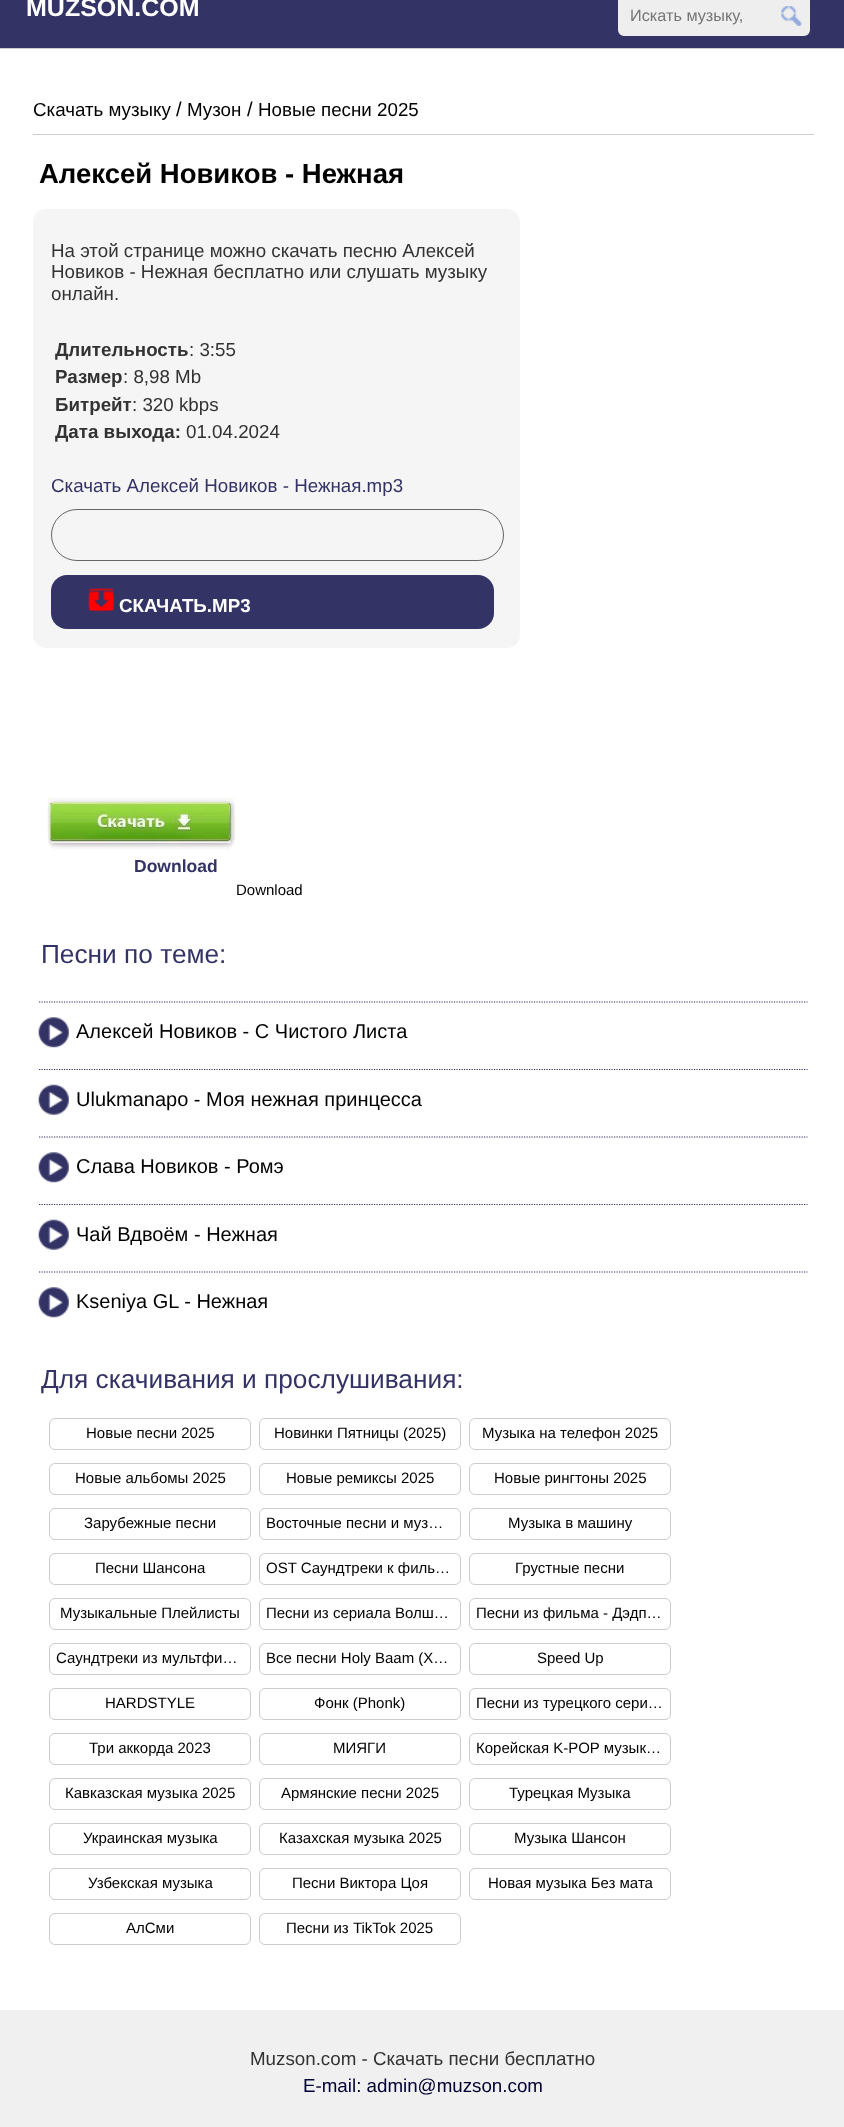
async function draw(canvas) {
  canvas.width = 844;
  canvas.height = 2127;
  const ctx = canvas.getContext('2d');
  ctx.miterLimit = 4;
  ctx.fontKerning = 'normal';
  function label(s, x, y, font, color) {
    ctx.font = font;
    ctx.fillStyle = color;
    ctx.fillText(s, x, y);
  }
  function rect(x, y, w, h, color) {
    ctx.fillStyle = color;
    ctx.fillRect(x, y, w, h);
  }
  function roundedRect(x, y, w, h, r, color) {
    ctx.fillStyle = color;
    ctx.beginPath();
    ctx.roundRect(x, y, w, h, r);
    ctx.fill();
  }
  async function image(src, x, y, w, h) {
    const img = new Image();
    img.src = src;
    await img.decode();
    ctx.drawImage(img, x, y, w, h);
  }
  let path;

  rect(0, 0, 844, 2127, '#fff');
  rect(0, 0, 844, 48, '#336');
  rect(0, 48, 844, 1, '#ccc');
  label('MUZSON.COM', 26, 16, 'bold 25px Liberation Sans', '#fff');
  ctx.fillStyle = '#eee';
  ctx.beginPath();
  ctx.roundRect(616, -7, 196, 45, 8);
  ctx.fill();
  ctx.strokeStyle = '#336';
  ctx.lineWidth = 4;
  ctx.stroke();
  label('Искать музыку,', 630, 21, '16.25px Liberation Sans', '#757575');
  await image('assets/img1.png', 781, 6, 21, 20);
  rect(33, 134, 781, 1, '#ccc');
  label('Скачать музыку', 33, 116, '18.75px Liberation Sans', '#000');
  label('/', 176, 116, '20px Liberation Sans', '#000');
  label('Музон', 187, 116, '18.75px Liberation Sans', '#000');
  label('/', 247, 116, '20px Liberation Sans', '#000');
  label('Новые песни 2025', 258, 116, '18.75px Liberation Sans', '#000');
  label('Алексей Новиков - Нежная', 39, 183, 'bold 27.5px Liberation Sans', '#000');
  roundedRect(33, 209, 487, 439, 13, '#f5f5f5');
  label('На этой странице можно скачать песню Алексей', 51, 257, '18.75px Liberation Sans', '#333');
  label('Новиков - Нежная бесплатно или слушать музыку', 51, 278, '18.75px Liberation Sans', '#333');
  label('онлайн.', 51, 300, '18.75px Liberation Sans', '#333');
  label('Длительность', 55, 356, 'bold 18.75px Liberation Sans', '#333');
  label(': 3:55', 189, 356, '18.75px Liberation Sans', '#333');
  label('Размер', 55, 383, 'bold 18.75px Liberation Sans', '#333');
  label(': 8,98 Mb', 123, 383, '18.75px Liberation Sans', '#333');
  label('Битрейт', 55, 411, 'bold 18.75px Liberation Sans', '#333');
  label(': 320 kbps', 132, 411, '18.75px Liberation Sans', '#333');
  label('Дата выхода:', 55, 438, 'bold 18.75px Liberation Sans', '#333');
  label('01.04.2024', 186, 438, '18.75px Liberation Sans', '#333');
  label('Скачать Алексей Новиков - Нежная.mp3', 51, 492, '18.75px Liberation Sans', '#336');
  ctx.beginPath();
  ctx.roundRect(51.5, 509.5, 452, 51, 25.5);
  ctx.strokeStyle = '#666';
  ctx.lineWidth = 1;
  ctx.stroke();
  roundedRect(51, 575, 443, 54, 16, '#336');
  await image('assets/img2.png', 88, 588, 26, 24);
  label('СКАЧАТЬ.MP3', 119, 612, 'bold 18.75px Liberation Sans', '#fff');
  await image('assets/img3.png', 47, 797, 188, 53);
  label('Download', 134, 872, 'bold 17.5px Liberation Sans', '#336');
  label('Download', 236, 895, '15px Liberation Sans', '#000');
  label('Песни по теме:', 41, 963, '26.25px Liberation Sans', '#336');
  await image('assets/img4.png', 38, 1017, 31, 31);
  path = new Path2D('M39 1002H807.5');
  ctx.strokeStyle = '#336';
  ctx.lineWidth = 1.2;
  ctx.setLineDash([1.25, 1.25]);
  ctx.stroke(path);
  label('Алексей Новиков - С Чистого Листа', 76, 1038, '20px Liberation Sans', '#000');
  await image('assets/img5.png', 38, 1084, 31, 31);
  path = new Path2D('M39 1069.5H807.5');
  ctx.stroke(path);
  label('Ulukmanapo - Моя нежная принцесса', 76, 1106, '20px Liberation Sans', '#000');
  await image('assets/img4.png', 38, 1152, 31, 31);
  path = new Path2D('M39 1137H807.5');
  ctx.stroke(path);
  label('Слава Новиков - Ромэ', 76, 1173, '20px Liberation Sans', '#000');
  await image('assets/img5.png', 38, 1219, 31, 31);
  path = new Path2D('M39 1204.5H807.5');
  ctx.stroke(path);
  label('Чай Вдвоём - Нежная', 76, 1241, '20px Liberation Sans', '#000');
  await image('assets/img4.png', 38, 1287, 31, 31);
  path = new Path2D('M39 1272H807.5');
  ctx.stroke(path);
  label('Kseniya GL - Нежная', 76, 1308, '20px Liberation Sans', '#000');
  label('Для скачивания и прослушивания:', 41, 1388, '26.25px Liberation Sans', '#336');
  ctx.beginPath();
  ctx.roundRect(49.5, 1418.5, 201, 31, 5.5);
  ctx.strokeStyle = '#ccc';
  ctx.lineWidth = 1;
  ctx.setLineDash([]);
  ctx.stroke();
  label('Новые песни 2025', 86, 1438, '15px Liberation Sans', '#000');
  ctx.beginPath();
  ctx.roundRect(259.5, 1418.5, 201, 31, 5.5);
  ctx.stroke();
  label('Новинки Пятницы (2025)', 274, 1438, '15px Liberation Sans', '#000');
  ctx.beginPath();
  ctx.roundRect(469.5, 1418.5, 201, 31, 5.5);
  ctx.stroke();
  label('Музыка на телефон 2025', 482, 1438, '15px Liberation Sans', '#000');
  ctx.beginPath();
  ctx.roundRect(49.5, 1463.5, 201, 31, 5.5);
  ctx.stroke();
  label('Новые альбомы 2025', 75, 1483, '15px Liberation Sans', '#000');
  ctx.beginPath();
  ctx.roundRect(259.5, 1463.5, 201, 31, 5.5);
  ctx.stroke();
  label('Новые ремиксы 2025', 286, 1483, '15px Liberation Sans', '#000');
  ctx.beginPath();
  ctx.roundRect(469.5, 1463.5, 201, 31, 5.5);
  ctx.stroke();
  label('Новые рингтоны 2025', 494, 1483, '15px Liberation Sans', '#000');
  ctx.beginPath();
  ctx.roundRect(49.5, 1508.5, 201, 31, 5.5);
  ctx.stroke();
  label('Зарубежные песни', 84, 1528, '15px Liberation Sans', '#000');
  ctx.beginPath();
  ctx.roundRect(259.5, 1508.5, 201, 31, 5.5);
  ctx.stroke();
  label('Восточные песни и муз…', 266, 1528, '15px Liberation Sans', '#000');
  ctx.beginPath();
  ctx.roundRect(469.5, 1508.5, 201, 31, 5.5);
  ctx.stroke();
  label('Музыка в машину', 508, 1528, '15px Liberation Sans', '#000');
  ctx.beginPath();
  ctx.roundRect(49.5, 1553.5, 201, 31, 5.5);
  ctx.stroke();
  label('Песни Шансона', 95, 1573, '15px Liberation Sans', '#000');
  ctx.beginPath();
  ctx.roundRect(259.5, 1553.5, 201, 31, 5.5);
  ctx.stroke();
  label('OST Саундтреки к филь…', 266, 1573, '15px Liberation Sans', '#000');
  ctx.beginPath();
  ctx.roundRect(469.5, 1553.5, 201, 31, 5.5);
  ctx.stroke();
  label('Грустные песни', 515, 1573, '15px Liberation Sans', '#000');
  ctx.beginPath();
  ctx.roundRect(49.5, 1598.5, 201, 31, 5.5);
  ctx.stroke();
  label('Музыкальные Плейлисты', 60, 1618, '15px Liberation Sans', '#000');
  ctx.beginPath();
  ctx.roundRect(259.5, 1598.5, 201, 31, 5.5);
  ctx.stroke();
  label('Песни из сериала Волш…', 266, 1618, '15px Liberation Sans', '#000');
  ctx.beginPath();
  ctx.roundRect(469.5, 1598.5, 201, 31, 5.5);
  ctx.stroke();
  label('Песни из фильма - Дэдп…', 476, 1618, '15px Liberation Sans', '#000');
  ctx.beginPath();
  ctx.roundRect(49.5, 1643.5, 201, 31, 5.5);
  ctx.stroke();
  label('Саундтреки из мультфи…', 56, 1663, '15px Liberation Sans', '#000');
  ctx.beginPath();
  ctx.roundRect(259.5, 1643.5, 201, 31, 5.5);
  ctx.stroke();
  label('Все песни Holy Baam (Х…', 266, 1663, '15px Liberation Sans', '#000');
  ctx.beginPath();
  ctx.roundRect(469.5, 1643.5, 201, 31, 5.5);
  ctx.stroke();
  label('Speed Up', 537, 1663, '15px Liberation Sans', '#000');
  ctx.beginPath();
  ctx.roundRect(49.5, 1688.5, 201, 31, 5.5);
  ctx.stroke();
  label('HARDSTYLE', 105, 1708, '15px Liberation Sans', '#000');
  ctx.beginPath();
  ctx.roundRect(259.5, 1688.5, 201, 31, 5.5);
  ctx.stroke();
  label('Фонк (Phonk)', 314, 1708, '15px Liberation Sans', '#000');
  ctx.beginPath();
  ctx.roundRect(469.5, 1688.5, 201, 31, 5.5);
  ctx.stroke();
  label('Песни из турецкого сери…', 476, 1708, '15px Liberation Sans', '#000');
  ctx.beginPath();
  ctx.roundRect(49.5, 1733.5, 201, 31, 5.5);
  ctx.stroke();
  label('Три аккорда 2023', 89, 1753, '15px Liberation Sans', '#000');
  ctx.beginPath();
  ctx.roundRect(259.5, 1733.5, 201, 31, 5.5);
  ctx.stroke();
  label('МИЯГИ', 333, 1753, '15px Liberation Sans', '#000');
  ctx.beginPath();
  ctx.roundRect(469.5, 1733.5, 201, 31, 5.5);
  ctx.stroke();
  label('Корейская K-POP музык…', 476, 1753, '15px Liberation Sans', '#000');
  ctx.beginPath();
  ctx.roundRect(49.5, 1778.5, 201, 31, 5.5);
  ctx.stroke();
  label('Кавказская музыка 2025', 65, 1798, '15px Liberation Sans', '#000');
  ctx.beginPath();
  ctx.roundRect(259.5, 1778.5, 201, 31, 5.5);
  ctx.stroke();
  label('Армянские песни 2025', 281, 1798, '15px Liberation Sans', '#000');
  ctx.beginPath();
  ctx.roundRect(469.5, 1778.5, 201, 31, 5.5);
  ctx.stroke();
  label('Турецкая Музыка', 509, 1798, '15px Liberation Sans', '#000');
  ctx.beginPath();
  ctx.roundRect(49.5, 1823.5, 201, 31, 5.5);
  ctx.stroke();
  label('Украинская музыка', 83, 1843, '15px Liberation Sans', '#000');
  ctx.beginPath();
  ctx.roundRect(259.5, 1823.5, 201, 31, 5.5);
  ctx.stroke();
  label('Казахская музыка 2025', 279, 1843, '15px Liberation Sans', '#000');
  ctx.beginPath();
  ctx.roundRect(469.5, 1823.5, 201, 31, 5.5);
  ctx.stroke();
  label('Музыка Шансон', 514, 1843, '15px Liberation Sans', '#000');
  ctx.beginPath();
  ctx.roundRect(49.5, 1868.5, 201, 31, 5.5);
  ctx.stroke();
  label('Узбекская музыка', 88, 1888, '15px Liberation Sans', '#000');
  ctx.beginPath();
  ctx.roundRect(259.5, 1868.5, 201, 31, 5.5);
  ctx.stroke();
  label('Песни Виктора Цоя', 292, 1888, '15px Liberation Sans', '#000');
  ctx.beginPath();
  ctx.roundRect(469.5, 1868.5, 201, 31, 5.5);
  ctx.stroke();
  label('Новая музыка Без мата', 488, 1888, '15px Liberation Sans', '#000');
  ctx.beginPath();
  ctx.roundRect(49.5, 1913.5, 201, 31, 5.5);
  ctx.stroke();
  label('АлСми', 126, 1933, '15px Liberation Sans', '#000');
  ctx.beginPath();
  ctx.roundRect(259.5, 1913.5, 201, 31, 5.5);
  ctx.stroke();
  label('Песни из TikTok 2025', 286, 1933, '15px Liberation Sans', '#000');
  rect(0, 2010, 844, 117, '#f0f0f0');
  label('Muzson.com - Скачать песни бесплатно', 250, 2065, '18.75px Liberation Sans', '#333');
  label('E-mail: admin@muzson.com', 303, 2092, '18.75px Liberation Sans', '#003');
}

draw(document.querySelector('canvas'));
